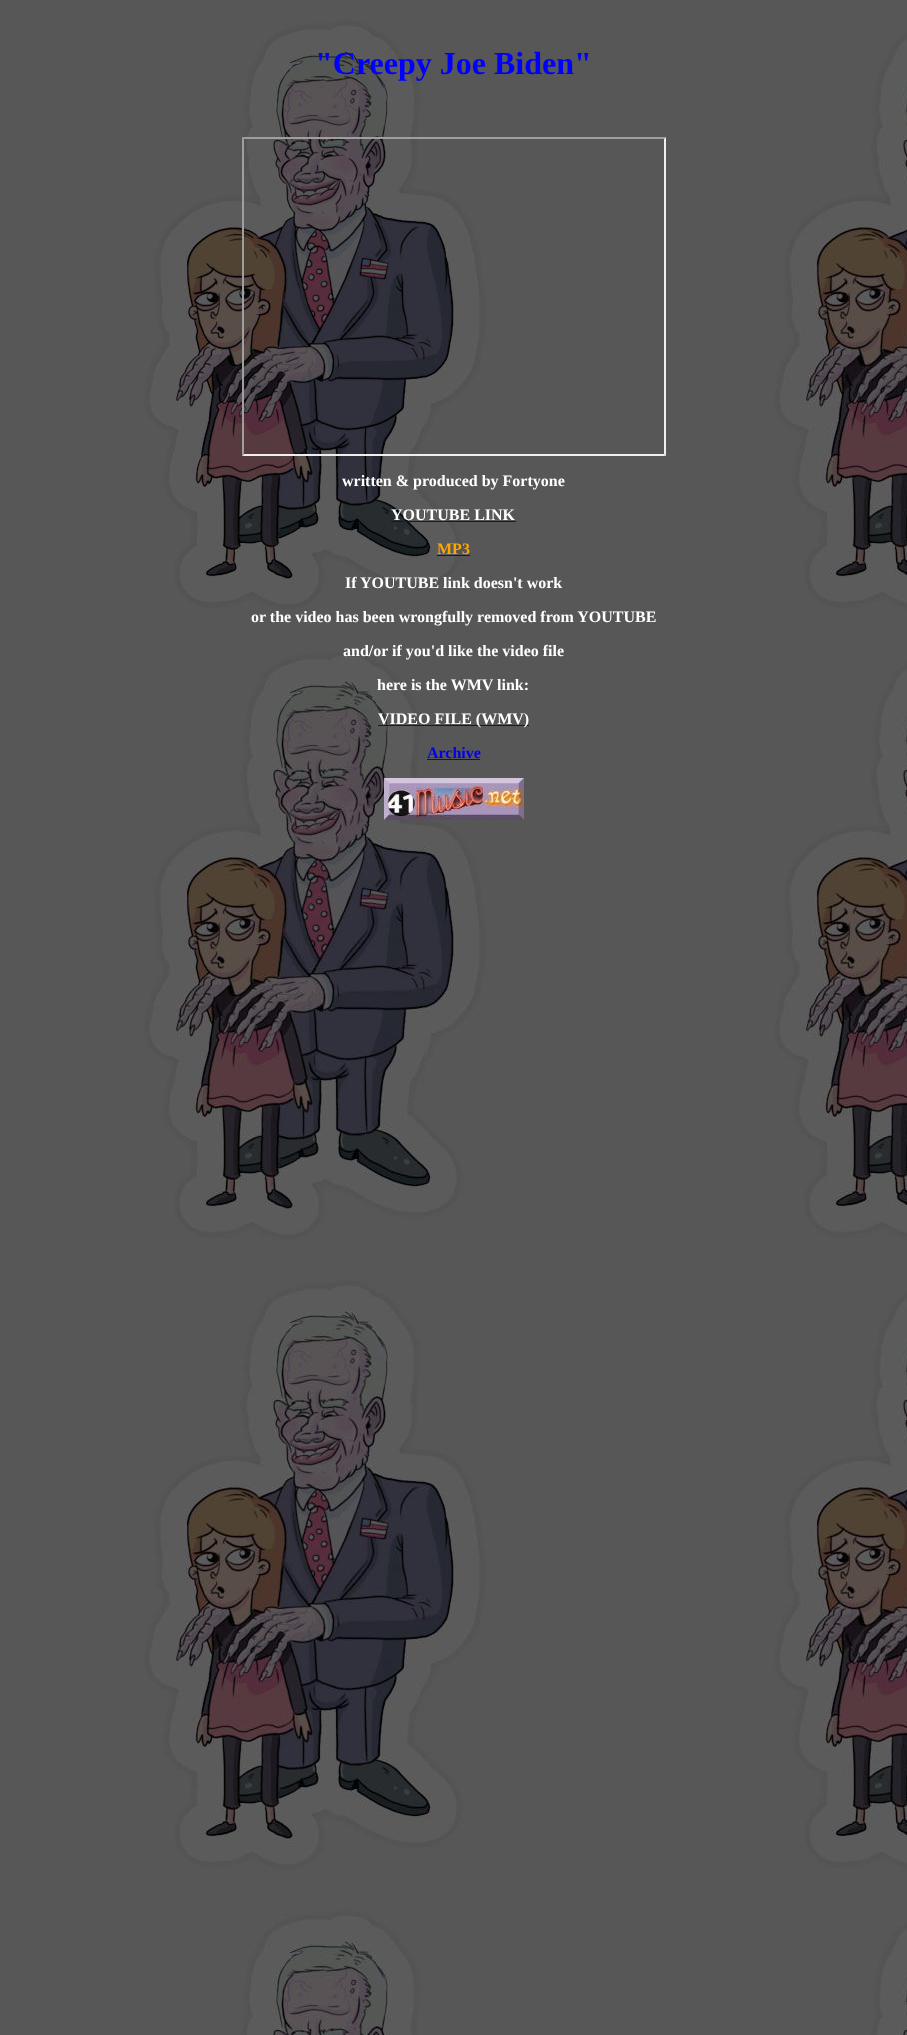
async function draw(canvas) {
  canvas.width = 907;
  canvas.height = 2035;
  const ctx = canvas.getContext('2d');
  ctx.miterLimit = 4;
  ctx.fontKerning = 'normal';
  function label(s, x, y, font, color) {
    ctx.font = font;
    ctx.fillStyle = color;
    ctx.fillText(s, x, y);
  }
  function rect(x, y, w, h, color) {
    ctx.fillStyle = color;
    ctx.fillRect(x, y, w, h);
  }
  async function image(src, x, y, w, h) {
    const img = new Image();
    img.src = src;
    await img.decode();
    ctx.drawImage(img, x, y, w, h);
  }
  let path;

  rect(0, 0, 907, 2035, '#fff');
  await image('assets/img1.png', 0, 0, 907, 2035);
  label('"Creepy Joe Biden"', 315, 74, 'bold 32px Liberation Serif', '#00f');
  ctx.fillStyle = '#9f9f9f';
  path = new Path2D('M242 137H666L664 139H244Z');
  ctx.fill(path);
  ctx.fillStyle = '#eee';
  path = new Path2D('M666 137V456L664 454V139Z');
  ctx.fill(path);
  path = new Path2D('M666 456H242L244 454H664Z');
  ctx.fill(path);
  ctx.fillStyle = '#9f9f9f';
  path = new Path2D('M242 456V137L244 139V454Z');
  ctx.fill(path);
  label('written & produced by Fortyone', 342, 486, 'bold 16px Liberation Serif', '#fff');
  label('YOUTUBE LINK', 391, 520, 'bold 16px Liberation Serif', '#fff');
  rect(391, 521, 125, 1, '#00e');
  label('MP3', 437, 554, 'bold 16px Liberation Serif', '#ffa500');
  rect(437, 555, 33, 1, '#00e');
  label('If YOUTUBE link doesn\'t work', 345, 588, 'bold 16px Liberation Serif', '#fff');
  label('or the video has been wrongfully removed from YOUTUBE', 251, 622, 'bold 16px Liberation Serif', '#fff');
  label('and/or if you\'d like the video file', 343, 656, 'bold 16px Liberation Serif', '#fff');
  label('here is the WMV link:', 377, 690, 'bold 16px Liberation Serif', '#fff');
  rect(378, 725, 151, 1, '#00e');
  label('VIDEO FILE (WMV)', 378, 724, 'bold 16px Liberation Serif', '#fff');
  label('Archive', 427, 758, 'bold 16px Liberation Serif', '#00e');
  rect(427, 759, 53, 1, '#00e');
  await image('assets/img2.png', 384, 778, 140, 42);
}

draw(document.querySelector('canvas'));
